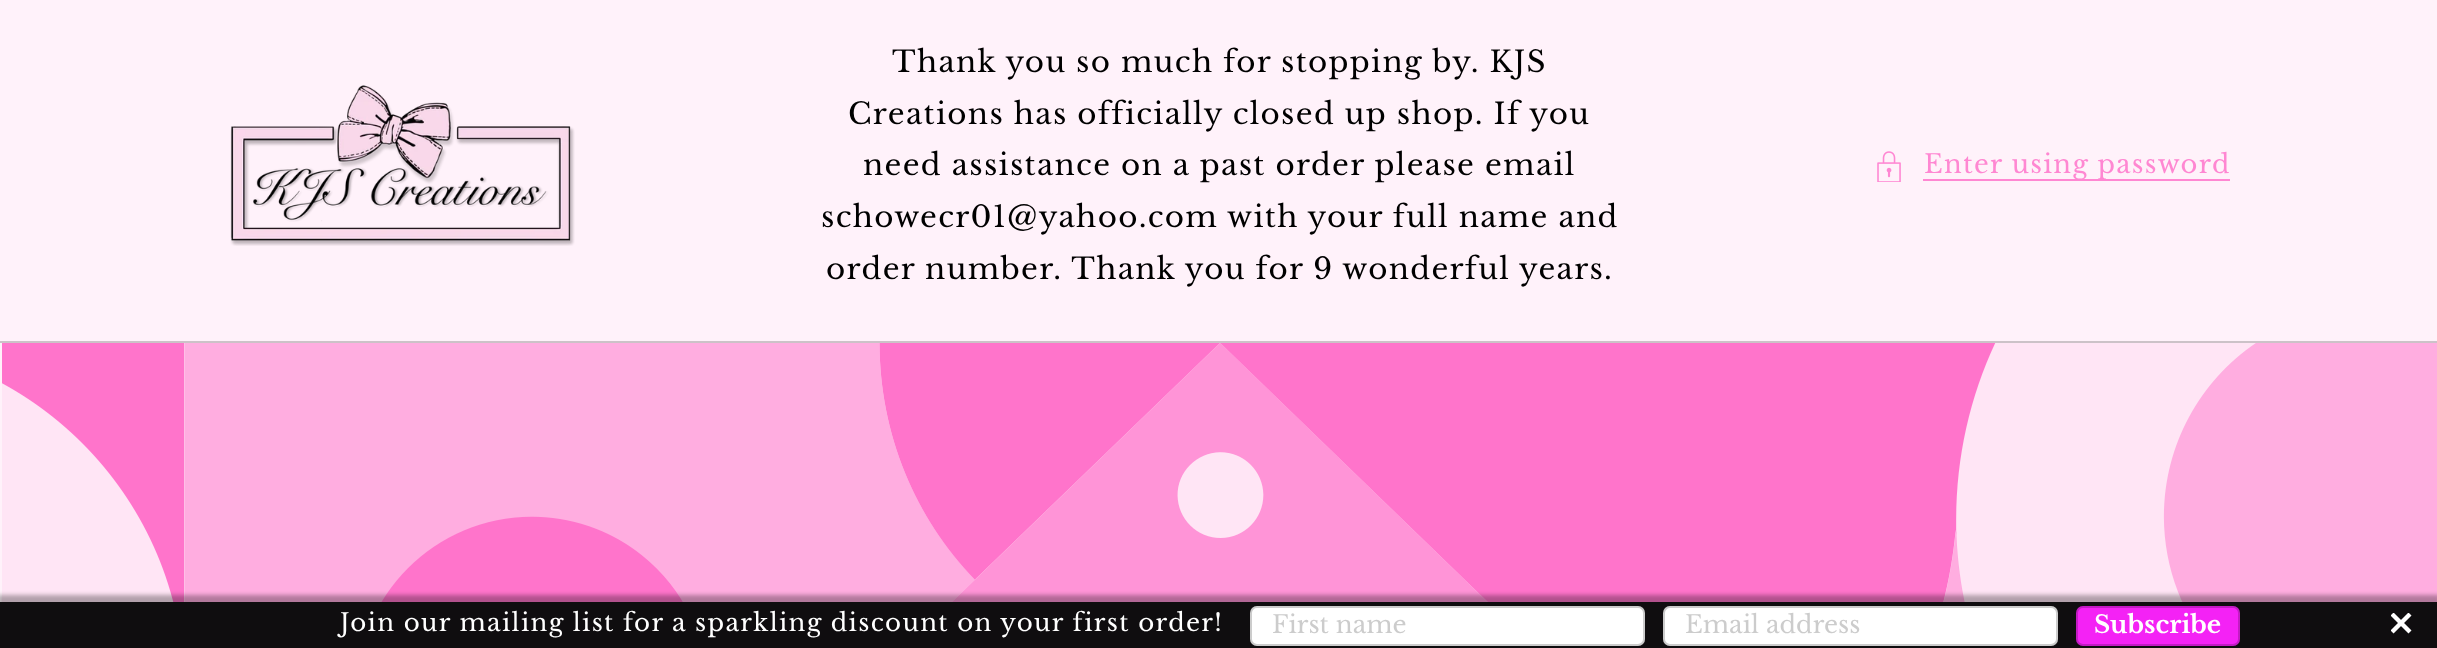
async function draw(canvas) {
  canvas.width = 2437;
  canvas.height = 648;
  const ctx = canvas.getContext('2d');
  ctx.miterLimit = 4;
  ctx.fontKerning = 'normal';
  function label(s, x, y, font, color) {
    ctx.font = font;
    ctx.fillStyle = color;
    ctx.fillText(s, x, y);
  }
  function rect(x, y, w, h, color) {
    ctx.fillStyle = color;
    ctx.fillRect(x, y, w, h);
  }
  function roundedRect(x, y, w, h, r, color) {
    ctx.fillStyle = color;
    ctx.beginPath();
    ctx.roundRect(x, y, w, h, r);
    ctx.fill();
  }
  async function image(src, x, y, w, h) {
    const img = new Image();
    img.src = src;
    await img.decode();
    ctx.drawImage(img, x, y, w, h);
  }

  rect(0, 0, 2437, 648, '#fff2fa');
  await image('assets/img1.png', 230, 85, 345, 161);
  ctx.letterSpacing = '1.3px';
  label('Thank you so much for stopping by. KJS', 892, 72, '29.4px Libre Baskerville', '#000');
  label('Creations has officially closed up shop. If you', 848, 124, '29.4px Libre Baskerville', '#000');
  label('need assistance on a past order please email', 863, 175, '29.4px Libre Baskerville', '#000');
  label('schowecr01@yahoo.com with your full name and', 821, 227, '29.4px Libre Baskerville', '#000');
  label('order number. Thank you for 9 wonderful years.', 826, 279, '29.4px Libre Baskerville', '#000');
  await image('assets/img2.png', 1877, 151, 24, 31);
  rect(1923, 179, 307, 2, '#ff87d2');
  label('Enter using password', 1924, 173, '25.75px Libre Baskerville', '#ff87d2');
  rect(0, 341, 2437, 2, '#ccc2c8');
  await image('assets/img3.png', 2, 343, 2435, 259);
  ctx.fillStyle = '#0000004d';
  ctx.filter = 'blur(2px)';
  ctx.beginPath();
  ctx.rect(-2, 595, 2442, 51);
  ctx.fill();
  ctx.filter = 'none';
  rect(0, 602, 2437, 46, '#0f0d0f');
  label('Join our mailing list for a sparkling discount on your first order!', 340, 631, '24.5px Libre Baskerville', '#fff');
  roundedRect(1250, 606, 395, 40, 7, '#fff');
  ctx.beginPath();
  ctx.roundRect(1251, 607, 393, 38, 6);
  ctx.strokeStyle = '#00000033';
  ctx.lineWidth = 2;
  ctx.stroke();
  ctx.letterSpacing = '0px';
  label('First name', 1272, 633, '24.5px Libre Baskerville', '#ccc');
  roundedRect(1663, 606, 395, 40, 7, '#fff');
  ctx.beginPath();
  ctx.roundRect(1664, 607, 393, 38, 6);
  ctx.stroke();
  label('Email address', 1685, 633, '24.5px Libre Baskerville', '#ccc');
  roundedRect(2076, 606, 164, 40, 7, '#f422f5');
  ctx.beginPath();
  ctx.roundRect(2077, 607, 162, 38, 6);
  ctx.stroke();
  label('Subscribe', 2094, 633, 'bold 24.5px Libre Baskerville', '#fff');
  await image('assets/img4.png', 2391, 613, 21, 21);
}

draw(document.querySelector('canvas'));
